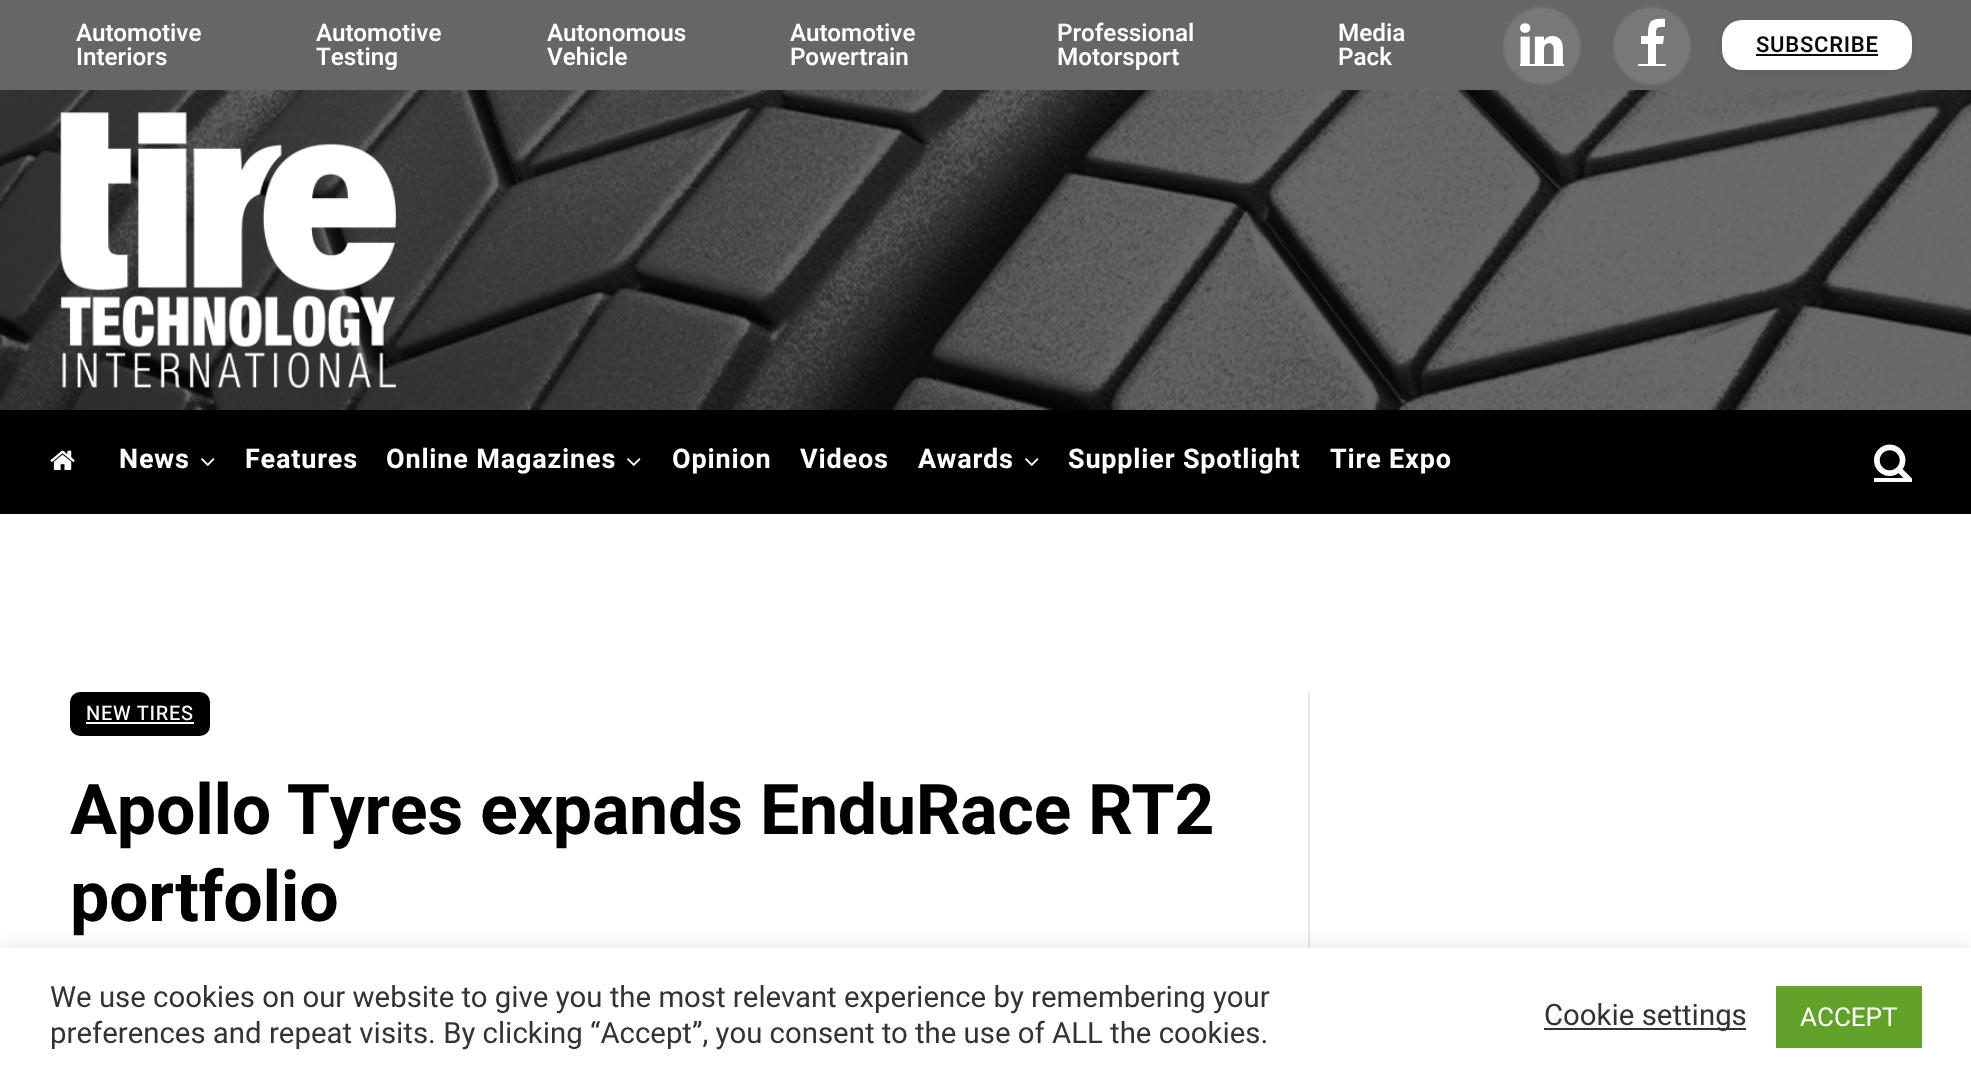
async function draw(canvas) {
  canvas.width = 1971;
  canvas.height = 1086;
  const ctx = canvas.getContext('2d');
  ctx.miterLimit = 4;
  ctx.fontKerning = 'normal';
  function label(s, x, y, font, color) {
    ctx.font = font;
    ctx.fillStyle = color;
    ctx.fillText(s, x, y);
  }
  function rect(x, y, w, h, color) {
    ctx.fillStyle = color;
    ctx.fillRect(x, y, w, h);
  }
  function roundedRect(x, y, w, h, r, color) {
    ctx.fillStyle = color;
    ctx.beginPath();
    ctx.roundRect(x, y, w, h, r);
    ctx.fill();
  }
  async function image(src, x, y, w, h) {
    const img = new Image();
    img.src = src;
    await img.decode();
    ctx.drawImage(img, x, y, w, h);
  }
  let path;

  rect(0, 0, 1971, 1086, '#fff');
  rect(0, 0, 1971, 90, '#666');
  label('Automotive', 76, 41, '600 24.25px Heebo', '#fff');
  label('Interiors', 76, 65, '600 24.25px Heebo', '#fff');
  label('Automotive', 316, 41, '600 24.25px Heebo', '#fff');
  label('Testing', 316, 65, '600 24.25px Heebo', '#fff');
  label('Autonomous', 547, 41, '600 24.25px Heebo', '#fff');
  label('Vehicle', 547, 65, '600 24.25px Heebo', '#fff');
  label('Automotive', 790, 41, '600 24.25px Heebo', '#fff');
  label('Powertrain', 790, 65, '600 24.25px Heebo', '#fff');
  label('Professional', 1057, 41, '600 24.25px Heebo', '#fff');
  label('Motorsport', 1057, 65, '600 24.25px Heebo', '#fff');
  label('Media', 1338, 41, '600 24.25px Heebo', '#fff');
  label('Pack', 1338, 65, '600 24.25px Heebo', '#fff');
  ctx.fillStyle = '#787878';
  ctx.beginPath();
  ctx.arc(1542, 46, 40, 0, 2 * Math.PI);
  ctx.fill();
  ctx.beginPath();
  ctx.arc(1542, 46, 39, 0, 2 * Math.PI);
  ctx.strokeStyle = '#00000017';
  ctx.lineWidth = 2;
  ctx.stroke();
  await image('assets/img1.png', 1520, 23, 43, 41);
  rect(1520, 64, 44, 2, '#fff');
  ctx.fillStyle = '#787878';
  ctx.beginPath();
  ctx.arc(1652, 46, 40, 0, 2 * Math.PI);
  ctx.fill();
  ctx.beginPath();
  ctx.arc(1652, 46, 39, 0, 2 * Math.PI);
  ctx.stroke();
  rect(1638, 64, 28, 2, '#fff');
  path = new Path2D('M1665 19V27C1656 27 1656 27 1656 36H1664L1663 44H1656V66H1648V44H1641V36H1648C1648 22 1650 18 1665 19Z');
  ctx.fill(path);
  ctx.fillStyle = '#00000029';
  ctx.filter = 'blur(7px)';
  ctx.beginPath();
  ctx.roundRect(1730, 32, 174, 34, 12);
  ctx.fill();
  ctx.filter = 'none';
  roundedRect(1722, 20, 190, 50, 20, '#fff');
  ctx.letterSpacing = '0.75px';
  label('SUBSCRIBE', 1756, 52, '600 22px Heebo', '#0a0a0a');
  rect(1756, 54, 122, 2, '#0a0a0a');
  await image('assets/img2.png', 0, 90, 1971, 320);
  await image('assets/img3.png', 60, 112, 336, 276);
  rect(0, 410, 1971, 104, '#000');
  await image('assets/img4.png', 50, 450, 25, 20);
  ctx.letterSpacing = '0.8px';
  label('News', 119, 468, 'bold 27px Heebo', '#fff');
  await image('assets/img5.png', 201, 458, 14, 8);
  label('Features', 245, 468, 'bold 27px Heebo', '#fff');
  label('Online Magazines', 386, 468, 'bold 27px Heebo', '#fff');
  await image('assets/img5.png', 627, 458, 14, 8);
  label('Opinion', 672, 468, 'bold 27px Heebo', '#fff');
  label('Videos', 800, 468, 'bold 27px Heebo', '#fff');
  label('Awards', 918, 468, 'bold 27px Heebo', '#fff');
  await image('assets/img5.png', 1025, 458, 14, 8);
  label('Supplier Spotlight', 1068, 468, 'bold 27px Heebo', '#fff');
  label('Tire Expo', 1330, 468, 'bold 27px Heebo', '#fff');
  await image('assets/img6.png', 1874, 444, 37, 34);
  rect(1874, 478, 38, 4, '#fff');
  roundedRect(70, 692, 140, 44, 10, '#000');
  ctx.letterSpacing = '0.75px';
  label('NEW TIRES', 86, 720, '500 20px Heebo', '#fff');
  rect(86, 722, 108, 2, '#fff');
  ctx.letterSpacing = '-0.35px';
  label('Apollo Tyres expands EnduRace RT2', 70, 834, 'bold 70px Heebo', '#000');
  label('portfolio', 70, 921, 'bold 70px Heebo', '#000');
  rect(1308, 692, 2, 256, '#e8e8e8');
  ctx.fillStyle = '#acabab4d';
  ctx.filter = 'blur(10px)';
  ctx.beginPath();
  ctx.rect(0, 946, 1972, 138);
  ctx.fill();
  ctx.filter = 'none';
  rect(0, 948, 1971, 138, '#fff');
  ctx.letterSpacing = '0px';
  label('We use cookies on our website to give you the most relevant experience by remembering your', 50, 1007, '29.35px Heebo', '#333');
  label('preferences and repeat visits. By clicking “Accept”, you consent to the use of ALL the cookies.', 50, 1043, '29.35px Heebo', '#333');
  rect(1544, 1028, 202, 2, '#333');
  label('Cookie settings', 1544, 1025, '29.35px Heebo', '#333');
  rect(1776, 986, 146, 62, '#61a229');
  label('ACCEPT', 1800, 1026, '26px Heebo', '#fff');
}

draw(document.querySelector('canvas'));
